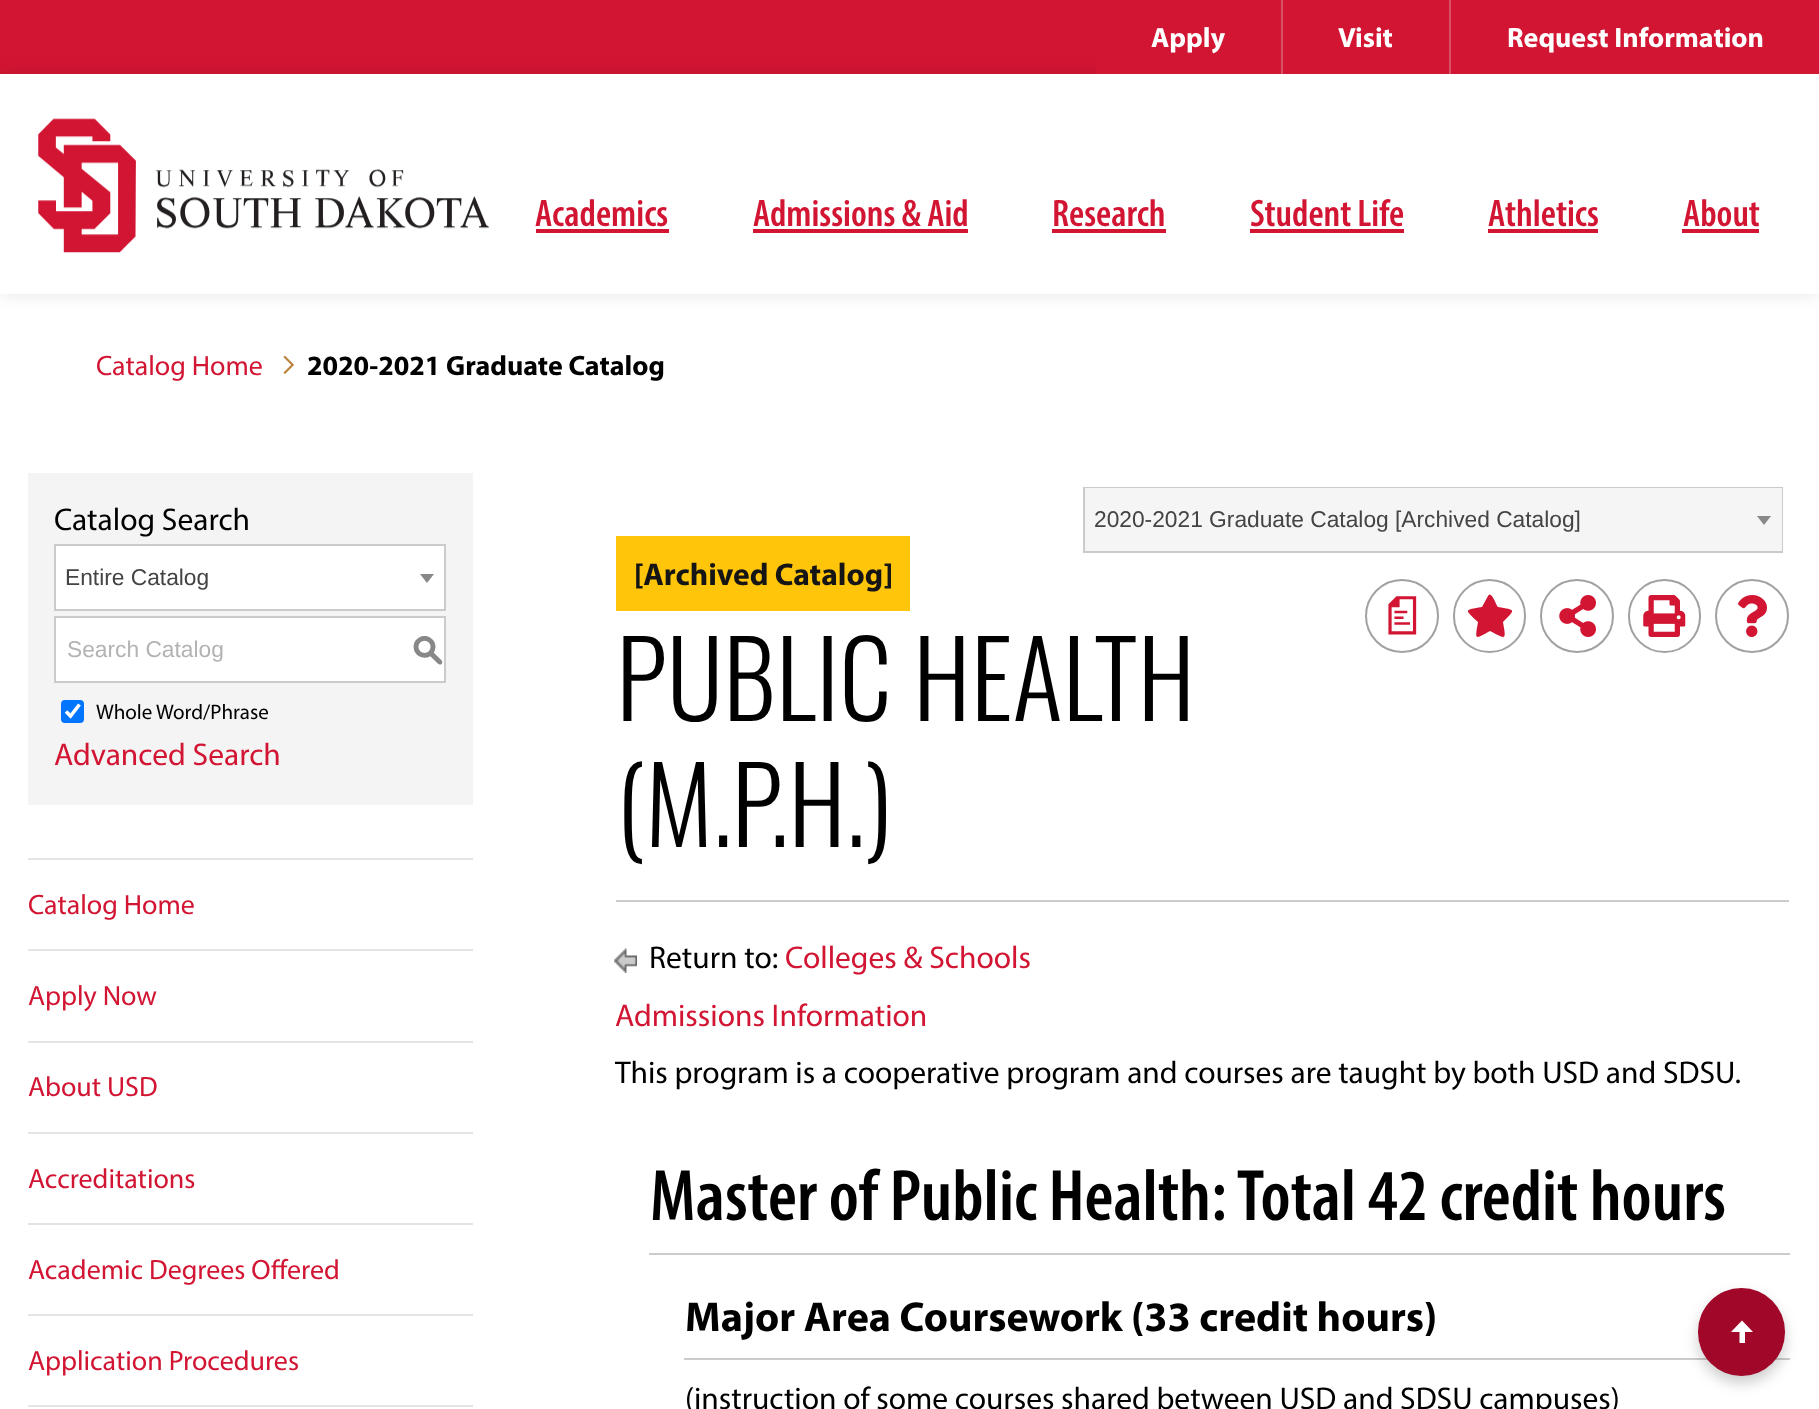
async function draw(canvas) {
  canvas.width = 1819;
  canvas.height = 1409;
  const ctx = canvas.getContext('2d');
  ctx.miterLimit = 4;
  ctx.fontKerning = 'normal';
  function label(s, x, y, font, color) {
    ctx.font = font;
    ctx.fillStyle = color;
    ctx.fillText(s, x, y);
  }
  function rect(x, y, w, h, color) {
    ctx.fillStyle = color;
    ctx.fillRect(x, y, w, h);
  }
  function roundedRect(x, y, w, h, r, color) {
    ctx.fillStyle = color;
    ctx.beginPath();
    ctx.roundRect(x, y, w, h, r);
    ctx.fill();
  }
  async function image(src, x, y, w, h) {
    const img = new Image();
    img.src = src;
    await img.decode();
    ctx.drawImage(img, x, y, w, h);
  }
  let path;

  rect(0, 0, 1819, 1409, '#fff');
  rect(0, 0, 1096, 74, '#d21533');
  ctx.save();
  path = new Path2D('M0 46H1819V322H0ZM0 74H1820V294H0Z');
  ctx.clip(path, 'evenodd');
  ctx.fillStyle = '#0000001a';
  ctx.filter = 'blur(9px)';
  ctx.beginPath();
  ctx.rect(0, 74, 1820, 220);
  ctx.fill();
  ctx.filter = 'none';
  ctx.restore();
  await image('assets/img1.png', 38, 118, 451, 135);
  rect(1096, 0, 185, 74, '#d21533');
  label('Apply', 1151, 47, 'bold 28px Myriad', '#fff');
  rect(1283, 0, 166, 74, '#d21533');
  rect(1281, 0, 2, 74, '#d75368');
  label('Visit', 1338, 47, 'bold 28px Myriad', '#fff');
  rect(1451, 0, 368, 74, '#d21533');
  rect(1449, 0, 2, 74, '#d75368');
  label('Request Information', 1507, 47, 'bold 28px Myriad', '#fff');
  label('Academics', 535, 226, '600 38.5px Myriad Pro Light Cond', '#d21533');
  rect(536, 229, 133, 4, '#d21533');
  label('Admissions & Aid', 753, 226, '600 38.5px Myriad Pro Light Cond', '#d21533');
  rect(753, 229, 215, 4, '#d21533');
  label('Research', 1052, 226, '600 38.5px Myriad Pro Light Cond', '#d21533');
  rect(1052, 229, 114, 4, '#d21533');
  label('Student Life', 1250, 226, '600 38.5px Myriad Pro Light Cond', '#d21533');
  rect(1250, 229, 154, 4, '#d21533');
  label('Athletics', 1488, 226, '600 38.5px Myriad Pro Light Cond', '#d21533');
  rect(1488, 229, 110, 4, '#d21533');
  label('About', 1683, 226, '600 38.5px Myriad Pro Light Cond', '#d21533');
  rect(1682, 229, 77, 4, '#d21533');
  label('Catalog Home', 96, 375, '28px Myriad', '#d21533');
  await image('assets/img2.png', 283, 355, 11, 19);
  label('2020-2021 Graduate Catalog', 307, 375, 'bold 28px Myriad', '#000');
  rect(28, 473, 445, 332, '#f4f4f4');
  label('Catalog Search', 54, 530, '31.5px Myriad', '#000');
  ctx.fillStyle = '#fff';
  ctx.beginPath();
  ctx.rect(55, 545, 390, 65);
  ctx.fill();
  ctx.strokeStyle = '#cbcbcb';
  ctx.lineWidth = 2;
  ctx.stroke();
  label('Entire Catalog', 65, 585, '22.75px Liberation Sans', '#444');
  ctx.fillStyle = '#888';
  path = new Path2D('M420 574H434L427 583Z');
  ctx.fill(path);
  ctx.fillStyle = '#fff';
  ctx.beginPath();
  ctx.rect(55, 617, 390, 65);
  ctx.fill();
  ctx.stroke();
  label('Search Catalog', 67, 657, '22.75px Liberation Sans', '#b3b3b3');
  label('S', 412, 660, '500 31.5px "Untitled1"', '#888');
  roundedRect(61, 700, 23, 23, 4, '#0075ff');
  path = new Path2D('M66 711.5L70.5 716L79.5 704.5');
  ctx.strokeStyle = '#fff';
  ctx.lineWidth = 3.6;
  ctx.stroke(path);
  label('Whole Word/Phrase', 96, 719, '21px Myriad', '#000');
  label('Advanced Search', 54, 765, '31.5px Myriad', '#d21533');
  rect(28, 858, 445, 2, '#e4e4e4');
  label('Catalog Home', 28, 914, '28px Myriad', '#d21533');
  rect(28, 949, 445, 2, '#e4e4e4');
  label('Apply Now', 28, 1005, '28px Myriad', '#d21533');
  rect(28, 1041, 445, 2, '#e4e4e4');
  label('About USD', 28, 1096, '28px Myriad', '#d21533');
  rect(28, 1132, 445, 2, '#e4e4e4');
  label('Accreditations', 28, 1188, '28px Myriad', '#d21533');
  rect(28, 1223, 445, 2, '#e4e4e4');
  label('Academic Degrees Offered', 28, 1279, '28px Myriad', '#d21533');
  rect(28, 1314, 445, 2, '#e4e4e4');
  label('Application Procedures', 28, 1370, '28px Myriad', '#d21533');
  rect(28, 1405, 445, 2, '#e4e4e4');
  rect(616, 536, 294, 75, '#ffc50a');
  label('[Archived Catalog]', 634, 585, 'bold 31.5px Myriad', '#151515');
  ctx.beginPath();
  ctx.arc(1402, 616, 36, 0, 2 * Math.PI);
  ctx.strokeStyle = '#a1a1a1';
  ctx.lineWidth = 2;
  ctx.stroke();
  label('a', 1381, 628, '500 42px "Untitled1"', '#d21533');
  ctx.beginPath();
  ctx.roundRect(1454, 580, 71, 72, 35.5);
  ctx.stroke();
  path = new Path2D('M1488 596C1491 589 1497 607 1498 607C1516 610 1516 609 1503 622C1506 640 1507 640 1490 631C1474 640 1475 640 1478 622C1464 609 1464 610 1482 607Z');
  ctx.fill(path);
  ctx.beginPath();
  ctx.arc(1577, 616, 36, 0, 2 * Math.PI);
  ctx.stroke();
  await image('assets/img3.png', 1559, 595, 37, 42);
  ctx.beginPath();
  ctx.roundRect(1629, 580, 71, 72, 35.5);
  ctx.stroke();
  await image('assets/img4.png', 1643, 595, 43, 42);
  ctx.beginPath();
  ctx.arc(1752, 616, 36, 0, 2 * Math.PI);
  ctx.stroke();
  await image('assets/img5.png', 1738, 595, 29, 42);
  label('PUBLIC HEALTH', 616, 721, '300 105px Oswald', '#000');
  label('(M.P.H.)', 616, 847, '300 105px Oswald', '#000');
  rect(616, 900, 1173, 2, '#ccc');
  await image('assets/img6.png', 614, 948, 23, 25);
  label('Return to:', 649, 968, '31.5px Myriad', '#000');
  label('Colleges & Schools', 785, 968, '31.5px Myriad', '#d21533');
  label('Admissions Information', 615, 1026, '31.5px Myriad', '#d21533');
  label('This program is a cooperative program and courses are taught by both USD and SDSU.', 615, 1083, '31.5px Myriad', '#000');
  label('Master of Public Health: Total 42 credit hours', 650, 1220, '600 73.5px Myriad Pro Light Cond', '#000');
  rect(649, 1253, 1141, 2, '#ccc');
  label('Major Area Coursework (33 credit hours)', 685, 1331, 'bold 42px Myriad', '#000');
  rect(684, 1358, 1106, 2, '#ccc');
  label('(instruction of some courses shared between USD and SDSU campuses)', 685, 1409, '31.5px Myriad', '#000');
  ctx.strokeStyle = '#cbcbcb';
  ctx.strokeRect(1084, 488, 698, 64);
  rect(1085, 488, 697, 63, '#f5f5f5');
  label('2020-2021 Graduate Catalog [Archived Catalog]', 1094, 527, '22.75px Liberation Sans', '#444');
  ctx.fillStyle = '#888';
  path = new Path2D('M1757 516H1771L1764 525Z');
  ctx.fill(path);
  ctx.fillStyle = '#00000033';
  ctx.filter = 'blur(7px)';
  ctx.beginPath();
  ctx.roundRect(1698, 1295, 87, 88, 43.5);
  ctx.fill();
  ctx.filter = 'none';
  roundedRect(1698, 1288, 87, 88, 43.5, '#a10729');
  ctx.fillStyle = '#fff';
  path = new Path2D('M1742 1320.5L1731 1332H1739.5V1343H1745V1332H1753Z');
  ctx.fill(path);
}

draw(document.querySelector('canvas'));
